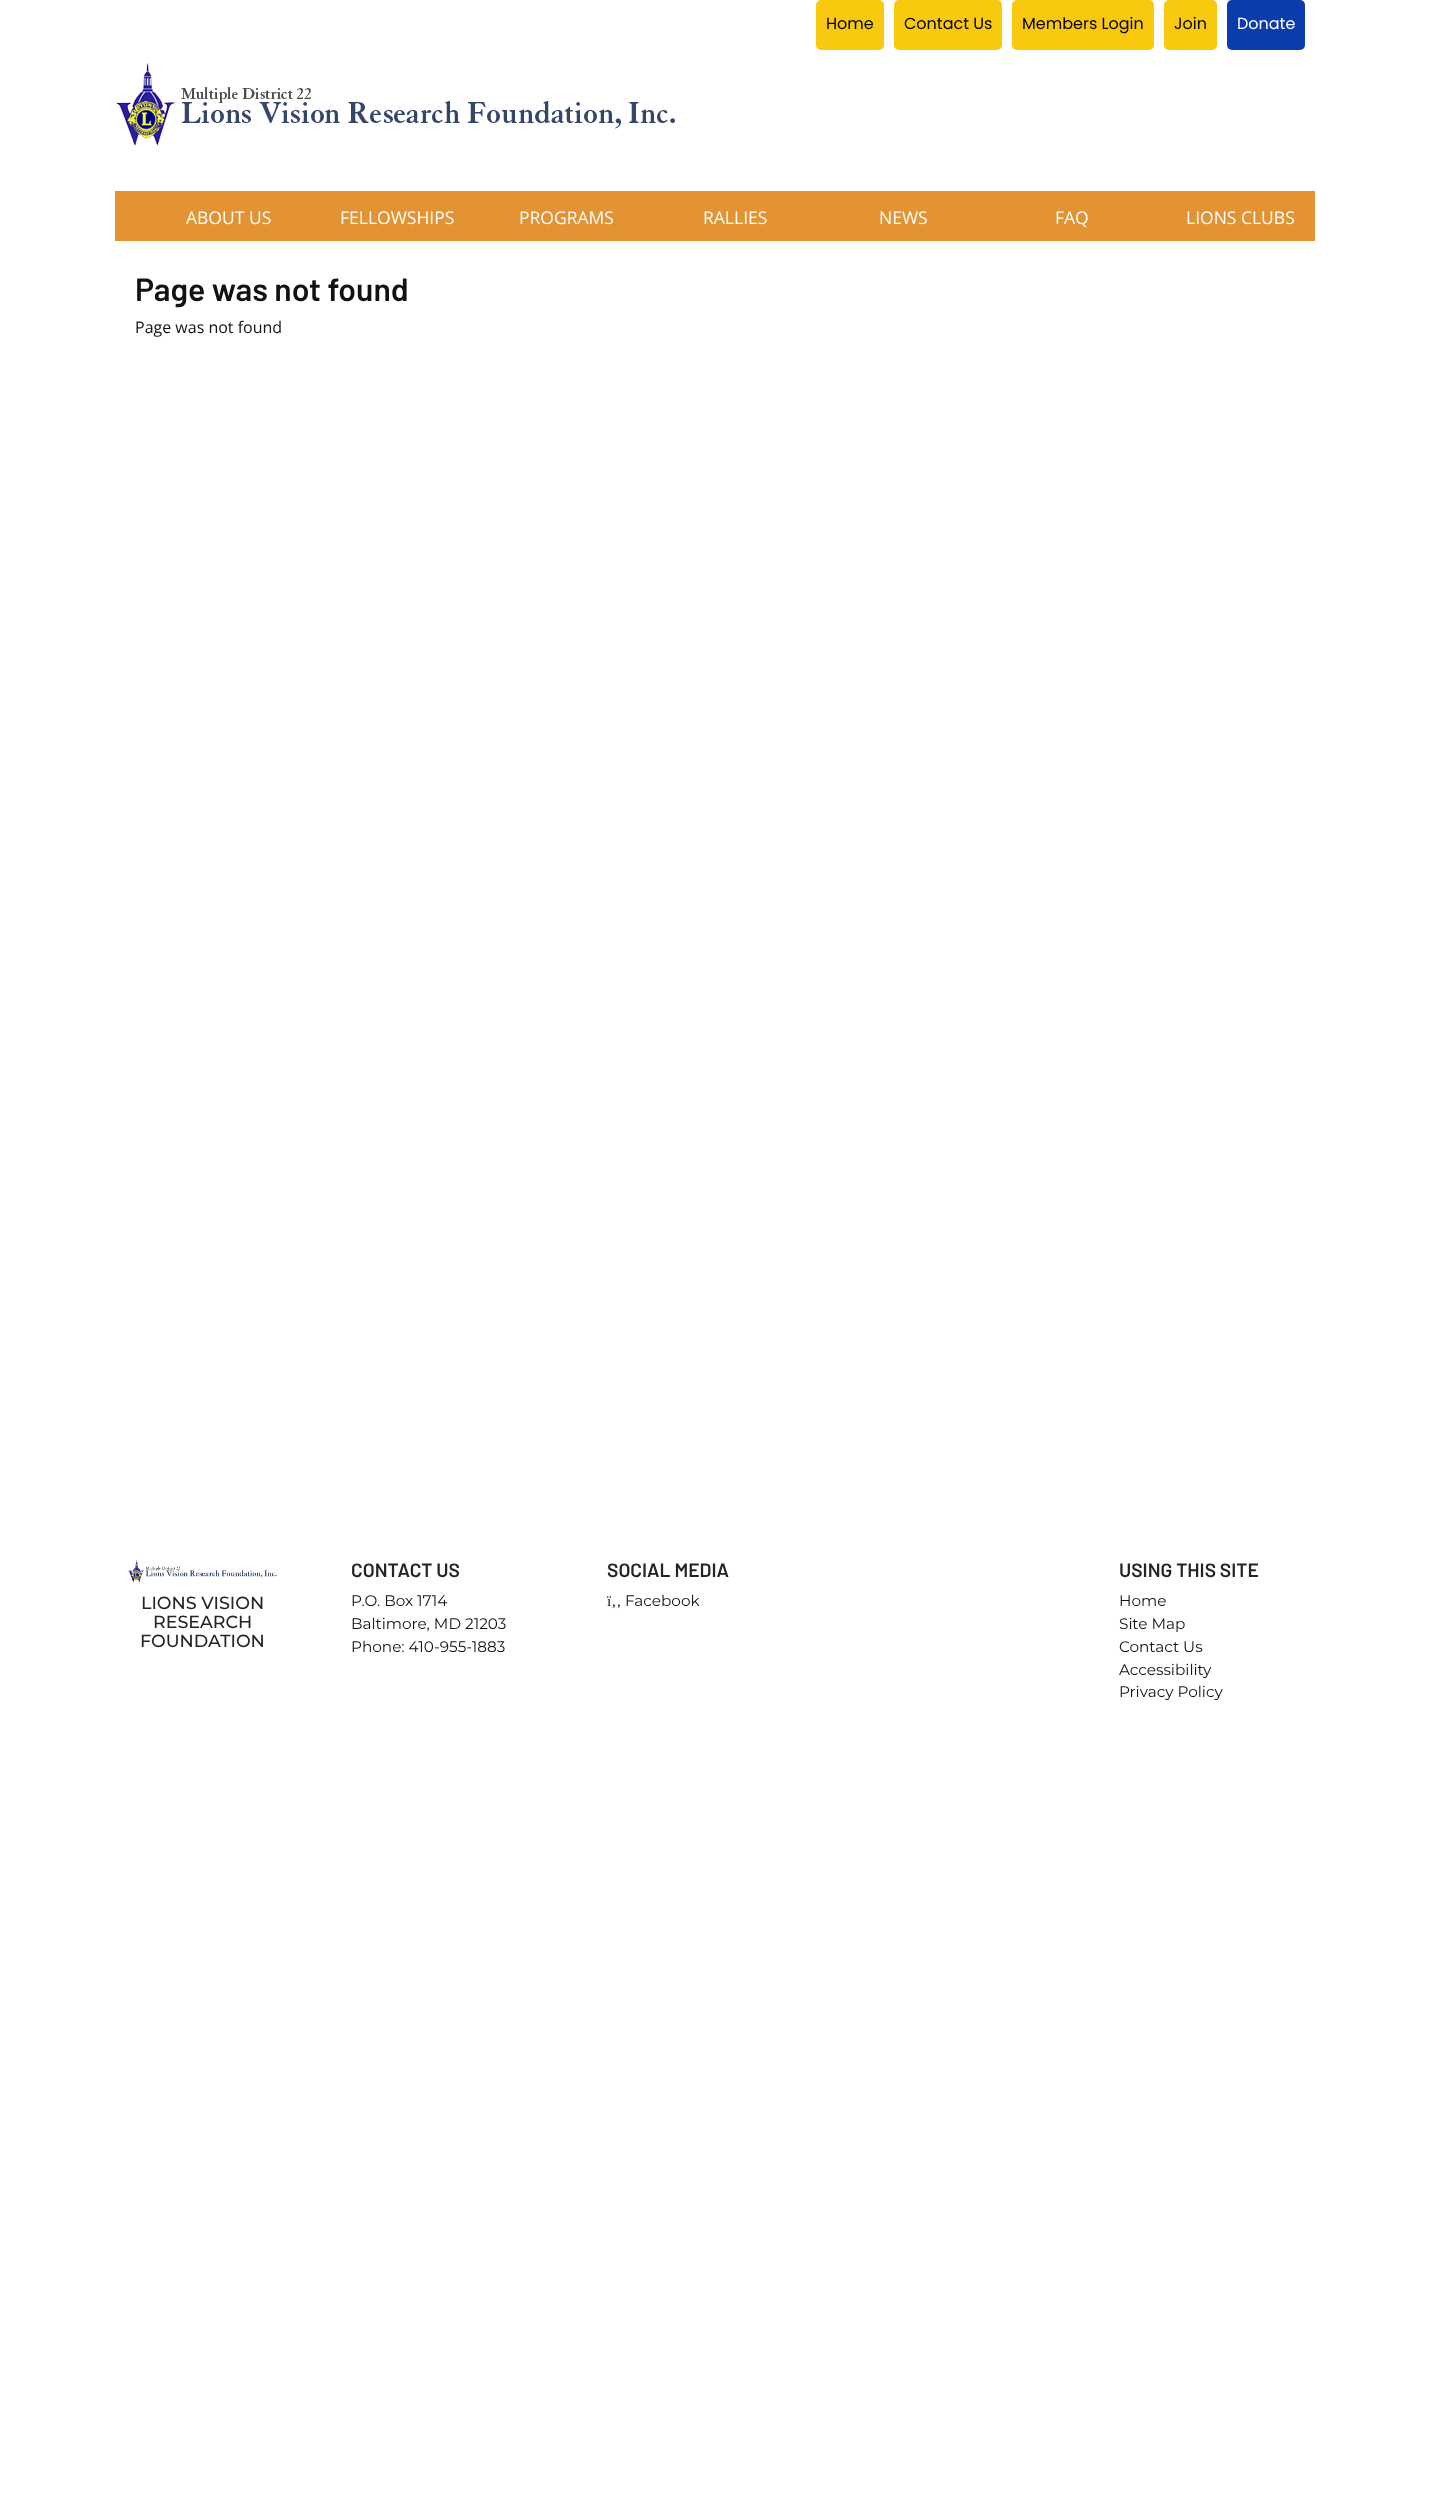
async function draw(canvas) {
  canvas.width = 1430;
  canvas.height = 2518;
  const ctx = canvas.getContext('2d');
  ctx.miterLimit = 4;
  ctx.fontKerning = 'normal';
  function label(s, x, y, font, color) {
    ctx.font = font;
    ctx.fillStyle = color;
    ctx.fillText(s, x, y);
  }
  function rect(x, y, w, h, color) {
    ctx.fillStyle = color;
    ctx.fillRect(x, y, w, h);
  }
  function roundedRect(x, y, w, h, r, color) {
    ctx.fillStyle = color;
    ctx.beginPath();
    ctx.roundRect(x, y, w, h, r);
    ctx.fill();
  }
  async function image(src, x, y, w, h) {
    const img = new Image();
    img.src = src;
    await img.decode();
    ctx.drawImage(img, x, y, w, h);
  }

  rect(0, 0, 1430, 2518, '#fff');
  roundedRect(816, 0, 68, 50, 5, '#f9c910');
  label('Home', 826, 29, '16px Poppins', '#000');
  roundedRect(894, 0, 108, 50, 5, '#f9c910');
  label('Contact Us', 904, 29, '16px Poppins', '#000');
  roundedRect(1012, 0, 142, 50, 5, '#f9c910');
  label('Members Login', 1022, 29, '16px Poppins', '#000');
  roundedRect(1164, 0, 53, 50, 5, '#f9c910');
  label('Join', 1174, 29, '16px Poppins', '#000');
  roundedRect(1227, 0, 78, 50, 5, '#0a3dab');
  label('Donate', 1237, 29, '16px Poppins', '#fff');
  await image('assets/img1.png', 116, 62, 559, 84);
  rect(115, 191, 1200, 50, '#e39334');
  label('ABOUT US', 186, 224, '17.5px Open Sans', '#fff');
  label('FELLOWSHIPS', 340, 224, '17.5px Open Sans', '#fff');
  label('PROGRAMS', 519, 224, '17.5px Open Sans', '#fff');
  label('RALLIES', 703, 224, '17.5px Open Sans', '#fff');
  label('NEWS', 879, 224, '17.5px Open Sans', '#fff');
  label('FAQ', 1055, 224, '17.5px Open Sans', '#fff');
  label('LIONS CLUBS', 1186, 224, '17.5px Open Sans', '#fff');
  label('Page was not found', 135, 301, '600 32px Barlow', '#121212');
  label('Page was not found', 135, 333, '16px Open Sans', '#121212');
  await image('assets/img2.png', 128, 1559, 149, 24);
  label('LIONS VISION', 141, 1609, '500 17.5px Montserrat', '#242424');
  label('RESEARCH', 153, 1628, '500 17.5px Montserrat', '#242424');
  label('FOUNDATION', 140, 1647, '500 17.5px Montserrat', '#242424');
  label('CONTACT US', 351, 1577, '600 19.25px Barlow', '#242424');
  label('P.O. Box 1714', 351, 1606, '15.25px Montserrat', '#121212');
  label('Baltimore, MD 21203', 351, 1629, '15.25px Montserrat', '#121212');
  label('Phone: 410-955-1883', 351, 1652, '15.25px Montserrat', '#121212');
  label('SOCIAL MEDIA', 607, 1577, '600 19.25px Barlow', '#242424');
  label('ï‚‚', 607, 1606, '15.25px Liberation Serif', '#121212');
  label('Facebook', 625, 1606, '15.25px Montserrat', '#121212');
  label('USING THIS SITE', 1119, 1577, '600 19.25px Barlow', '#242424');
  label('Home', 1119, 1606, '15.25px Montserrat', '#121212');
  label('Site Map', 1119, 1629, '15.25px Montserrat', '#121212');
  label('Contact Us', 1119, 1652, '15.25px Montserrat', '#121212');
  label('Accessibility', 1119, 1675, '15.25px Montserrat', '#121212');
  label('Privacy Policy', 1119, 1697, '15.25px Montserrat', '#121212');
}

draw(document.querySelector('canvas'));
